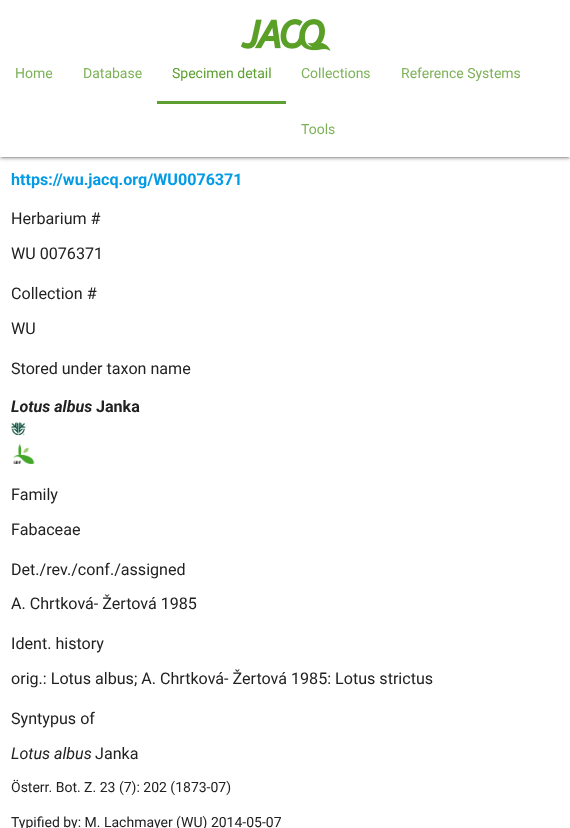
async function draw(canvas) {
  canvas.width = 570;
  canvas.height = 828;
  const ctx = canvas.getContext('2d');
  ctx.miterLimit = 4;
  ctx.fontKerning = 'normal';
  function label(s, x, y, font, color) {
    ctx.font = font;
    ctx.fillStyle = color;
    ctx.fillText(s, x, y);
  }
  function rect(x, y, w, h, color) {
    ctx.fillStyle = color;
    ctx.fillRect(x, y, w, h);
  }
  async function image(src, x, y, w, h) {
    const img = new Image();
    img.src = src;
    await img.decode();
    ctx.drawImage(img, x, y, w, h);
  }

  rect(0, 0, 570, 828, '#fff');
  ctx.fillStyle = '#00000033';
  ctx.filter = 'blur(2.5px)';
  ctx.beginPath();
  ctx.rect(0, 1, 570, 157);
  ctx.fill();
  ctx.filter = 'none';
  ctx.fillStyle = '#0000001f';
  ctx.filter = 'blur(0.5px)';
  ctx.beginPath();
  ctx.rect(2, 5, 566, 153);
  ctx.fill();
  ctx.filter = 'none';
  ctx.fillStyle = '#00000024';
  ctx.filter = 'blur(1px)';
  ctx.beginPath();
  ctx.rect(0, 2, 570, 157);
  ctx.fill();
  ctx.filter = 'none';
  rect(0, 0, 570, 157, '#fff');
  await image('assets/img1.png', 240, 19, 91, 32);
  label('Home', 15, 78, '14px Roboto', '#7db259');
  label('Database', 83, 78, '14px Roboto', '#7db259');
  rect(157, 101, 129, 3, '#5d9f30');
  label('Specimen detail', 172, 78, '14px Roboto', '#5d9f30');
  label('Collections', 301, 78, '14px Roboto', '#7db259');
  label('Reference Systems', 401, 78, '14px Roboto', '#7db259');
  label('Tools', 301, 134, '14px Roboto', '#7db259');
  label('https://wu.jacq.org/WU0076371', 11, 185, 'bold 16.1px Roboto', '#039be5');
  label('Herbarium #', 11, 224, '16.1px Roboto', '#212121');
  label('WU 0076371', 11, 259, '16.1px Roboto', '#212121');
  label('Collection #', 11, 299, '16.1px Roboto', '#212121');
  label('WU', 11, 334, '16.1px Roboto', '#212121');
  label('Stored under taxon name', 11, 374, '16.1px Roboto', '#212121');
  label('Lotus albus', 11, 412, 'italic bold 16.1px Roboto', '#212121');
  label('Janka', 96, 412, 'bold 16.1px Roboto', '#212121');
  await image('assets/img2.png', 11, 422, 15, 14);
  await image('assets/img3.png', 13, 444, 22, 20);
  label('Family', 11, 500, '16.1px Roboto', '#212121');
  label('Fabaceae', 11, 535, '16.1px Roboto', '#212121');
  label('Det./rev./conf./assigned', 11, 575, '16.1px Roboto', '#212121');
  label('A. Chrtková- Žertová 1985', 11, 609, '16.1px Roboto', '#212121');
  label('Ident. history', 11, 649, '16.1px Roboto', '#212121');
  label('orig.: Lotus albus; A. Chrtková- Žertová 1985: Lotus strictus', 11, 684, '16.1px Roboto', '#212121');
  label('Syntypus of', 11, 724, '16.1px Roboto', '#212121');
  label('Lotus albus', 11, 759, 'italic 16.1px Roboto', '#212121');
  label('Janka', 95, 759, '16.1px Roboto', '#212121');
  label('Österr. Bot. Z. 23 (7): 202 (1873-07)', 11, 792, '14px Roboto', '#212121');
  label('Typified by: M. Lachmayer (WU) 2014-05-07', 11, 827, '14px Roboto', '#212121');
}

draw(document.querySelector('canvas'));
